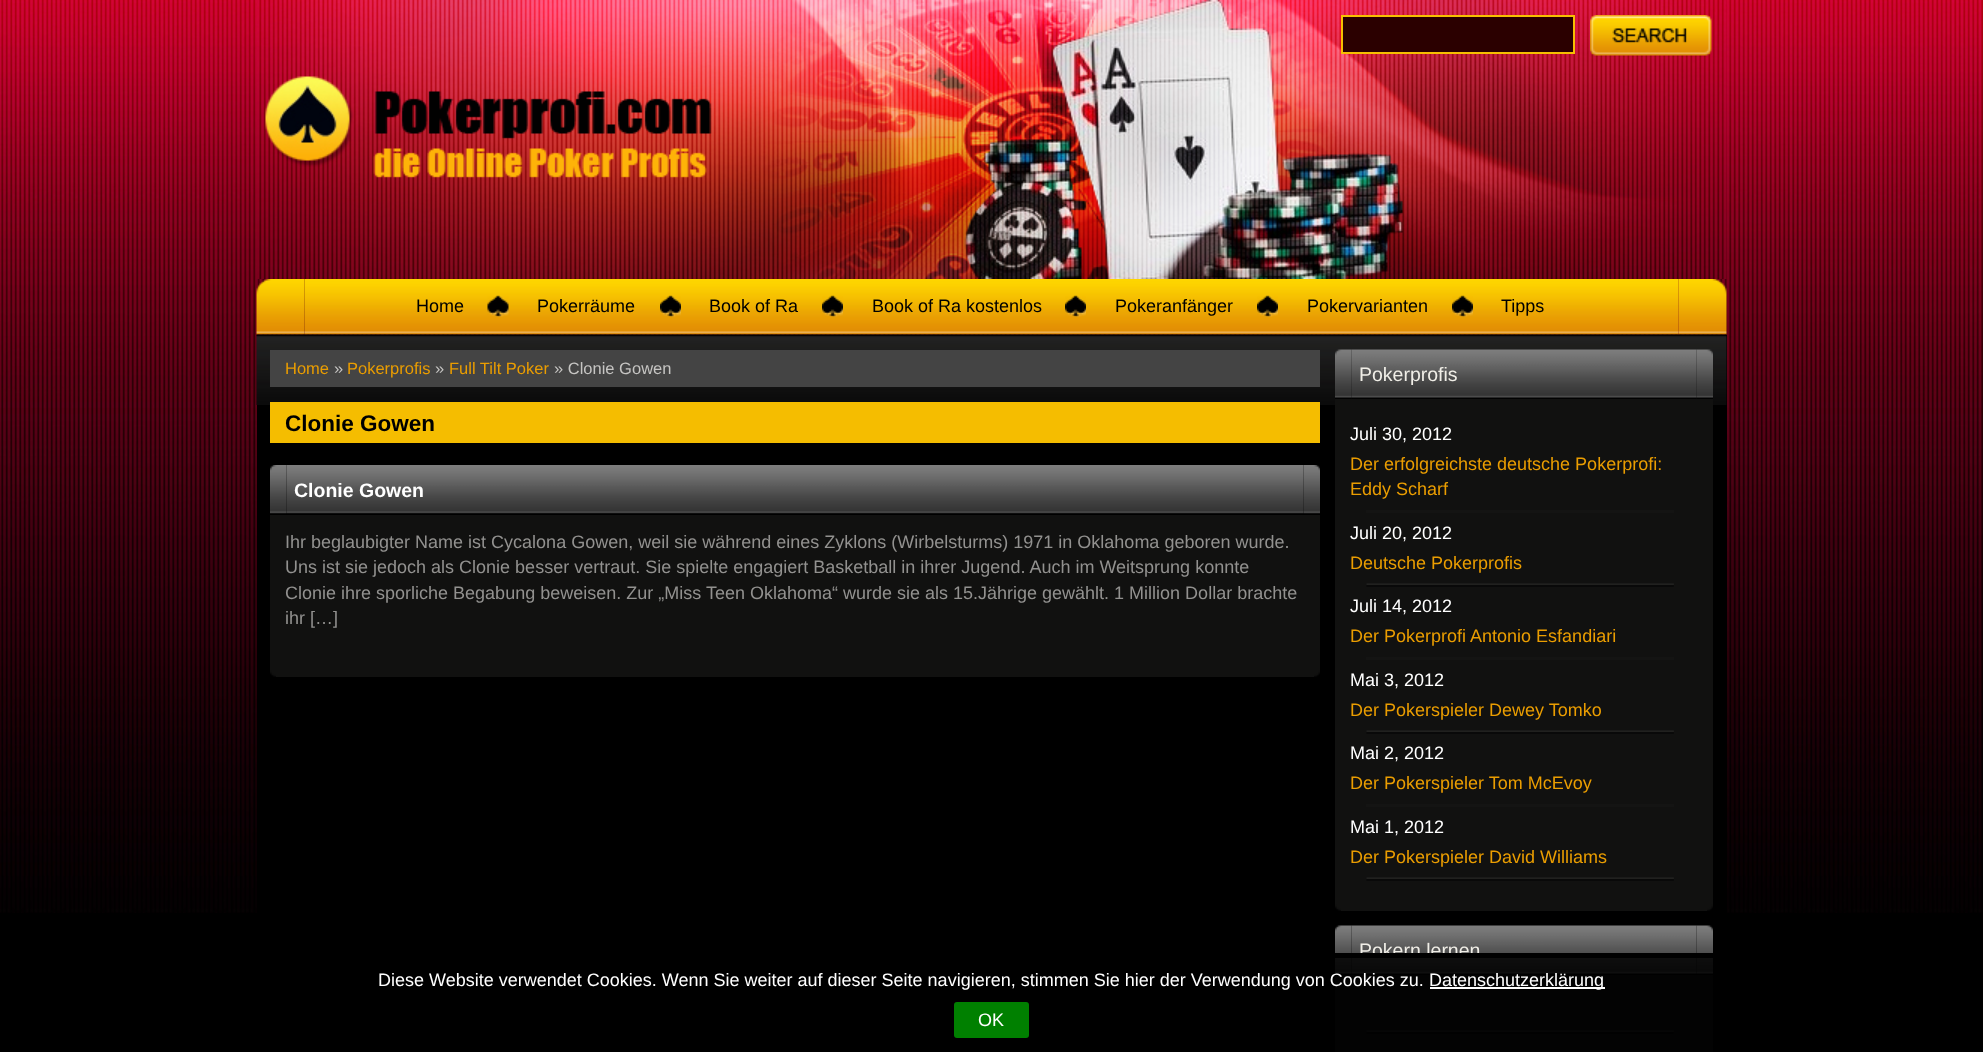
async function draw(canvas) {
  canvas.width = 1983;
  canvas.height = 1052;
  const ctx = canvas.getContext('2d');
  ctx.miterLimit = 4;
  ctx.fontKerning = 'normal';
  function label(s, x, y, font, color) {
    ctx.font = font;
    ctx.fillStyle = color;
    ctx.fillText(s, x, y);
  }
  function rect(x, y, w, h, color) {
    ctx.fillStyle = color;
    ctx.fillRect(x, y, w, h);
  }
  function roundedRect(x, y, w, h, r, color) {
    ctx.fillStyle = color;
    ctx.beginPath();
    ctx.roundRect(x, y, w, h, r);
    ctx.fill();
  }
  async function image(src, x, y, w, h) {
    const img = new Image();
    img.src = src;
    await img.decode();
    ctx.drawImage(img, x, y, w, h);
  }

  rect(0, 0, 1983, 1052, '#000');
  await image('assets/img1.png', 0, 0, 1983, 913);
  await image('assets/img2.png', 257, 0, 1470, 279);
  ctx.fillStyle = '#2b0000';
  ctx.beginPath();
  ctx.rect(1342, 16, 232, 37);
  ctx.fill();
  ctx.strokeStyle = '#f6bf01';
  ctx.lineWidth = 2;
  ctx.stroke();
  await image('assets/img3.png', 1590, 15, 122, 42);
  await image('assets/img4.png', 265, 76, 447, 102);
  await image('assets/img5.png', 256, 279, 49, 56);
  await image('assets/img6.png', 1678, 279, 49, 56);
  await image('assets/img7.png', 304, 279, 1375, 56);
  label('Home', 416, 312, '18px Liberation Sans', '#000');
  await image('assets/img8.png', 487, 295, 22, 22);
  label('Pokerräume', 537, 312, '18px Liberation Sans', '#000');
  await image('assets/img9.png', 660, 295, 21, 22);
  label('Book of Ra', 709, 312, '18px Liberation Sans', '#000');
  await image('assets/img9.png', 822, 295, 21, 22);
  label('Book of Ra kostenlos', 872, 312, '18px Liberation Sans', '#000');
  await image('assets/img10.png', 1065, 295, 21, 22);
  label('Pokeranfänger', 1115, 312, '18px Liberation Sans', '#000');
  await image('assets/img11.png', 1257, 295, 21, 22);
  label('Pokervarianten', 1307, 312, '18px Liberation Sans', '#000');
  await image('assets/img9.png', 1452, 295, 21, 22);
  label('Tipps', 1501, 312, '18px Liberation Sans', '#000');
  rect(257, 335, 1470, 578, '#000');
  await image('assets/img12.png', 256, 334, 1471, 71);
  rect(270, 350, 1050, 37, '#444');
  label('Home', 285, 374, '16.5px Liberation Sans', '#ea9d01');
  label('»', 334, 374, '16.5px Liberation Sans', '#c6c5c3');
  label('Pokerprofis', 347, 374, '16.5px Liberation Sans', '#ea9d01');
  label('»', 435, 374, '16.5px Liberation Sans', '#c6c5c3');
  label('Full Tilt Poker', 449, 374, '16.5px Liberation Sans', '#ea9d01');
  label('» Clonie Gowen', 554, 374, '16.5px Liberation Sans', '#c6c5c3');
  rect(270, 402, 1050, 41, '#f5bd00');
  label('Clonie Gowen', 285, 431, 'bold 22.5px Liberation Sans', '#000');
  await image('assets/img13.png', 270, 465, 17, 49);
  await image('assets/img14.png', 1303, 465, 17, 49);
  await image('assets/img15.png', 286, 465, 1018, 49);
  label('Clonie Gowen', 294, 497, 'bold 19.5px Liberation Sans', '#fff');
  rect(270, 515, 1050, 147, '#111110');
  label('Ihr beglaubigter Name ist Cycalona Gowen, weil sie während eines Zyklons (Wirbelsturms) 1971 in Oklahoma geboren wurde.', 285, 548, '18px Liberation Sans', '#92918f');
  label('Uns ist sie jedoch als Clonie besser vertraut. Sie spielte engagiert Basketball in ihrer Jugend. Auch im Weitsprung konnte', 285, 573, '18px Liberation Sans', '#92918f');
  label('Clonie ihre sporliche Begabung beweisen. Zur „Miss Teen Oklahoma“ wurde sie als 15.Jährige gewählt. 1 Million Dollar brachte', 285, 599, '18px Liberation Sans', '#92918f');
  label('ihr […]', 285, 624, '18px Liberation Sans', '#92918f');
  await image('assets/img16.png', 270, 662, 6, 15);
  await image('assets/img17.png', 1314, 662, 6, 15);
  rect(276, 662, 1038, 15, '#111110');
  await image('assets/img18.png', 1335, 349, 17, 50);
  await image('assets/img19.png', 1696, 349, 17, 50);
  await image('assets/img20.png', 1351, 349, 346, 50);
  label('Pokerprofis', 1359, 381, '19.5px Liberation Sans', '#f0eee7');
  rect(1335, 399, 378, 497, '#111110');
  rect(1366, 510, 308, 3, '#141413');
  label('Juli 30, 2012', 1350, 440, '18px Liberation Sans', '#fff');
  label('Der erfolgreichste deutsche Pokerprofi:', 1350, 470, '18px Liberation Sans', '#ea9d01');
  label('Eddy Scharf', 1350, 495, '18px Liberation Sans', '#ea9d01');
  await image('assets/img21.png', 1366, 583, 308, 4);
  label('Juli 20, 2012', 1350, 539, '18px Liberation Sans', '#fff');
  label('Deutsche Pokerprofis', 1350, 569, '18px Liberation Sans', '#ea9d01');
  rect(1366, 657, 308, 3, '#141413');
  label('Juli 14, 2012', 1350, 612, '18px Liberation Sans', '#fff');
  label('Der Pokerprofi Antonio Esfandiari', 1350, 642, '18px Liberation Sans', '#ea9d01');
  await image('assets/img21.png', 1366, 730, 308, 4);
  label('Mai 3, 2012', 1350, 686, '18px Liberation Sans', '#fff');
  label('Der Pokerspieler Dewey Tomko', 1350, 716, '18px Liberation Sans', '#ea9d01');
  rect(1366, 804, 308, 3, '#141413');
  label('Mai 2, 2012', 1350, 759, '18px Liberation Sans', '#fff');
  label('Der Pokerspieler Tom McEvoy', 1350, 789, '18px Liberation Sans', '#ea9d01');
  await image('assets/img21.png', 1366, 877, 308, 4);
  label('Mai 1, 2012', 1350, 833, '18px Liberation Sans', '#fff');
  label('Der Pokerspieler David Williams', 1350, 863, '18px Liberation Sans', '#ea9d01');
  await image('assets/img16.png', 1335, 896, 6, 15);
  await image('assets/img17.png', 1707, 896, 6, 15);
  rect(1341, 896, 366, 15, '#111110');
  await image('assets/img22.png', 1335, 925, 17, 49);
  await image('assets/img23.png', 1696, 925, 17, 49);
  await image('assets/img24.png', 1351, 925, 346, 49);
  label('Pokern lernen', 1359, 957, '19.5px Liberation Sans', '#f0eee7');
  rect(1335, 975, 378, 77, '#111110');
  await image('assets/img21.png', 1366, 1030, 308, 4);
  rect(1335, 958, 378, 94, '#000000cc');
  rect(1335, 953, 378, 5, '#000');
  label('Diese Website verwendet Cookies. Wenn Sie weiter auf dieser Seite navigieren, stimmen Sie hier der Verwendung von Cookies zu.', 378, 986, '18px Liberation Sans', '#fff');
  rect(1430, 987, 175, 2, '#fff');
  label('Datenschutzerklärung', 1429, 986, '18px Liberation Sans', '#fff');
  roundedRect(954, 1002, 75, 36, 3, '#008000');
  label('OK', 978, 1026, '18px Liberation Sans', '#fff');
}

draw(document.querySelector('canvas'));
